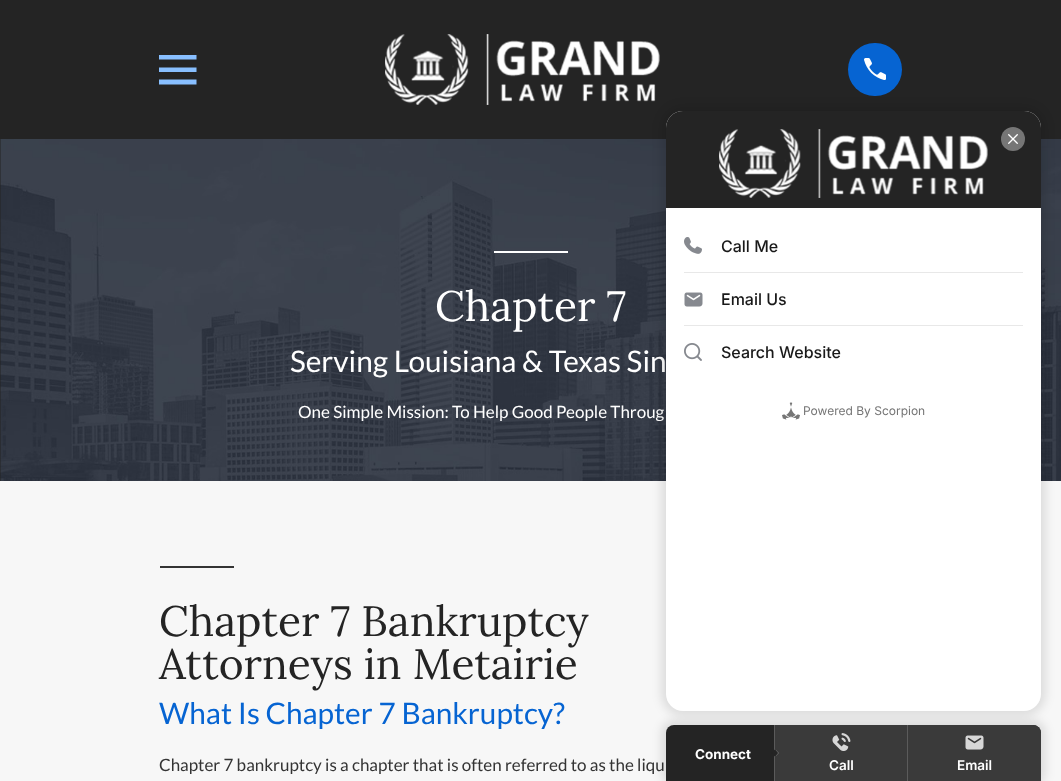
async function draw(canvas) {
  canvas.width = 1061;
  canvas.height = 781;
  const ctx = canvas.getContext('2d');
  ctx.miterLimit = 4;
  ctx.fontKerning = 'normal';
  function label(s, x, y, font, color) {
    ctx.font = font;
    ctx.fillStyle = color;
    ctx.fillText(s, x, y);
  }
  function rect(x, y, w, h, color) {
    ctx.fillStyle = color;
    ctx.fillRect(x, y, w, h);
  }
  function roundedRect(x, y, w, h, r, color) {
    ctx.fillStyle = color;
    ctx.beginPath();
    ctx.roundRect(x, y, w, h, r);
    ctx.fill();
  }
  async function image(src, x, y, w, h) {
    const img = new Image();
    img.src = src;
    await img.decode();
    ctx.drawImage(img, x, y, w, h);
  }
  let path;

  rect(0, 0, 1061, 781, '#242424');
  ctx.fillStyle = '#88bfff';
  path = new Path2D('M159 55V59.5H196.5V55ZM159 67.5V72H196.5V67.5ZM159 79.5V84.5H196.5V79.5Z');
  ctx.fill(path);
  await image('assets/img1.png', 385, 34, 275, 71);
  roundedRect(848, 43, 54, 53, 26.5, '#0664d2');
  await image('assets/img2.png', 864, 58, 22, 22);
  await image('assets/img3.png', 0, 139, 1061, 342);
  rect(494, 251, 74, 2, '#fff');
  label('Chapter 7', 435, 321, '42.5px Lora', '#fff');
  label('Serving Louisiana & Texas Sin', 290, 372, '29.75px Lato', '#fff');
  label('One Simple Mission: To Help Good People Throug', 298, 418, '17px Lato', '#fff');
  rect(0, 481, 1061, 300, '#f7f7f7');
  rect(160, 566, 74, 2, '#343434');
  label('Chapter 7 Bankruptcy', 159, 636, '42.5px Lora', '#242424');
  label('Attorneys in Metairie', 159, 679, '42.5px Lora', '#242424');
  label('What Is Chapter 7 Bankruptcy?', 159, 724, '29.75px Lato', '#0664d2');
  label('Chapter 7 bankruptcy is a chapter that is often referred to as the liqu', 159, 771, '17px Lato', '#343434');
  ctx.fillStyle = '#0000001a';
  ctx.filter = 'blur(5px)';
  ctx.beginPath();
  ctx.roundRect(661, 106, 385, 610, 22);
  ctx.fill();
  ctx.filter = 'none';
  roundedRect(666, 111, 375, 600, 17, '#fff');
  ctx.fillStyle = '#242424';
  ctx.beginPath();
  ctx.roundRect(666, 111, 375, 97, [17, 17, 0, 0]);
  ctx.fill();
  await image('assets/img4.png', 719, 129, 269, 69);
  ctx.fillStyle = '#767676';
  ctx.beginPath();
  ctx.arc(1013, 139, 12, 0, 2 * Math.PI);
  ctx.fill();
  await image('assets/img5.png', 1008, 134, 10, 10);
  rect(684, 272, 339, 1, '#e8e8e8');
  await image('assets/img6.png', 684, 237, 18, 17);
  label('Call Me', 721, 252, '500 16px Inter', '#191919');
  rect(684, 325, 339, 1, '#e8e8e8');
  await image('assets/img7.png', 684, 292, 19, 15);
  label('Email Us', 721, 305, '500 16px Inter', '#191919');
  await image('assets/img8.png', 684, 343, 18, 18);
  label('Search Website', 721, 358, '500 16px Inter', '#191919');
  await image('assets/img9.png', 782, 402, 18, 18);
  label('Powered By Scorpion', 803, 415, '12px Inter', '#757575');
  ctx.fillStyle = '#0000001a';
  ctx.filter = 'blur(5px)';
  ctx.beginPath();
  ctx.roundRect(661, 720, 385, 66, 13);
  ctx.fill();
  ctx.filter = 'none';
  ctx.fillStyle = '#242424';
  ctx.beginPath();
  ctx.roundRect(666, 725, 375, 56, [8, 8, 0, 0]);
  ctx.fill();
  rect(774, 725, 1, 56, '#5b5b5b');
  label('Connect', 695, 759, 'bold 13.5px Inter', '#fff');
  rect(775, 725, 132, 56, '#3a3a3a');
  ctx.fillStyle = '#242424';
  path = new Path2D('M775.5 749L779.5 753L775.5 757L771 753Z');
  ctx.fill(path);
  ctx.fillStyle = '#5d5d5d';
  path = new Path2D('M775.5 749L779.5 753H778L775.5 750ZM779.5 753L775.5 757V756L778 753Z');
  ctx.fill(path);
  rect(907, 725, 1, 56, '#5b5b5b');
  await image('assets/img10.png', 832, 733, 19, 18);
  label('Call', 829, 770, '600 13.5px Inter', '#fff');
  ctx.fillStyle = '#3a3a3a';
  ctx.beginPath();
  ctx.roundRect(908, 725, 133, 56, [0, 8, 0, 0]);
  ctx.fill();
  await image('assets/img11.png', 965, 735, 19, 15);
  label('Email', 957, 770, '600 13.5px Inter', '#fff');
}

draw(document.querySelector('canvas'));
